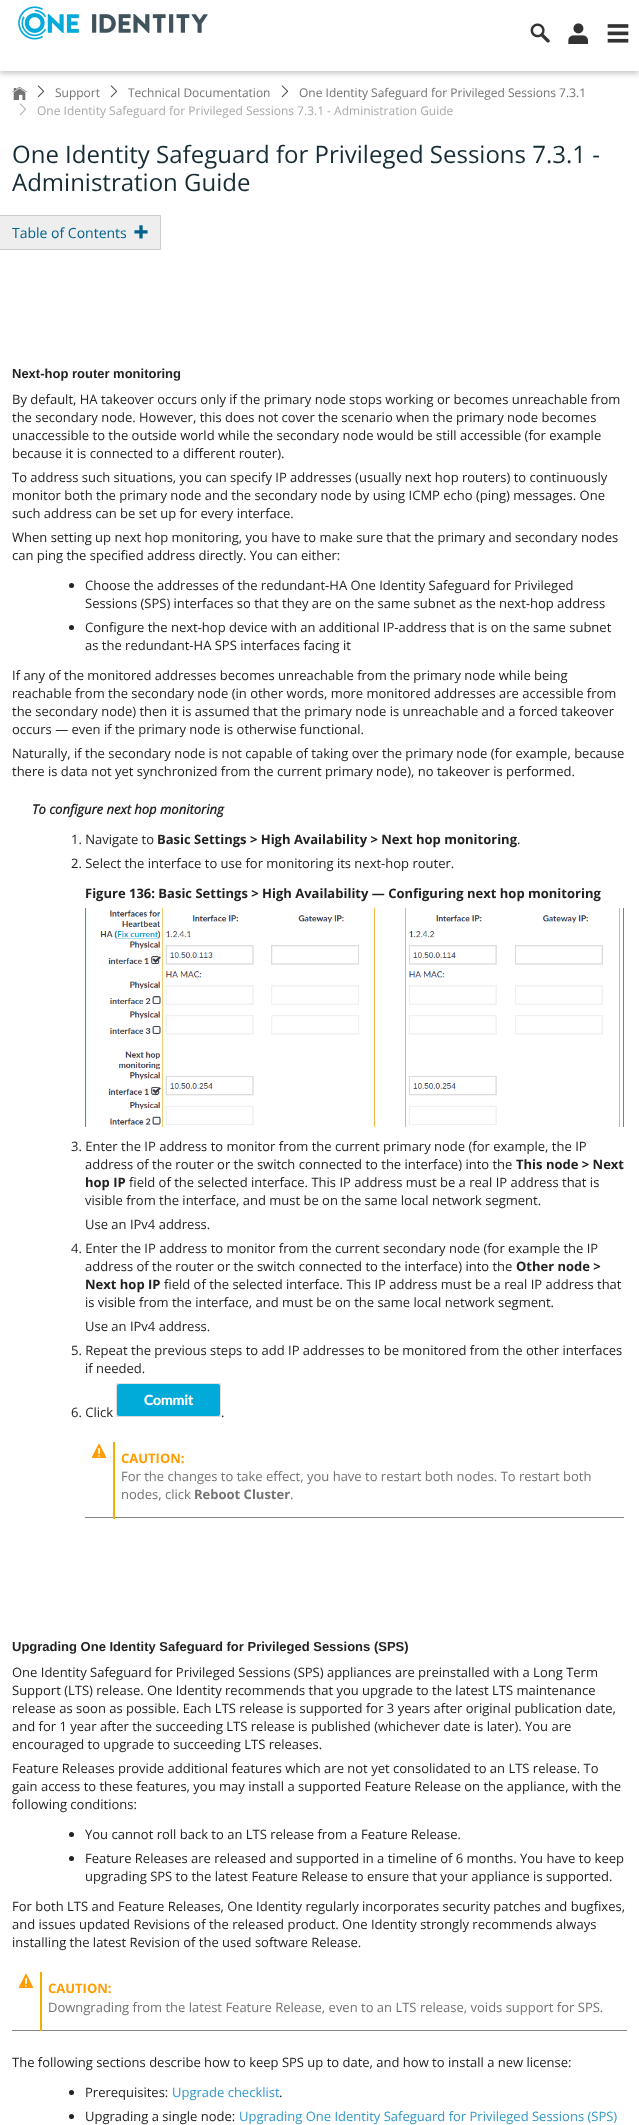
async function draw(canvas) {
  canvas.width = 639;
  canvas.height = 2125;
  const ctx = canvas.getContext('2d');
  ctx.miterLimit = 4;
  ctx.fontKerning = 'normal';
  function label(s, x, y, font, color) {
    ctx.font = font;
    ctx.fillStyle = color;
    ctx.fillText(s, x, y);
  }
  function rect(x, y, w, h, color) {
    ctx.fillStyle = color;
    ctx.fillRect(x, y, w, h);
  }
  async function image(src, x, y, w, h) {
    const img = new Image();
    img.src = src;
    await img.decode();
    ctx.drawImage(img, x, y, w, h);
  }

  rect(0, 0, 639, 2125, '#fff');
  ctx.save();
  ctx.beginPath();
  ctx.rect(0, 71, 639, 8);
  ctx.clip();
  ctx.fillStyle = '#cdcdcd';
  ctx.filter = 'blur(2.5px)';
  ctx.beginPath();
  ctx.rect(0, 2, 639, 72);
  ctx.fill();
  ctx.filter = 'none';
  ctx.restore();
  await image('assets/img1.png', 18, 6, 190, 34);
  await image('assets/img2.png', 530, 23, 20, 20);
  await image('assets/img3.png', 568, 23, 20, 21);
  await image('assets/img4.png', 607, 24, 22, 19);
  await image('assets/img5.png', 12, 86, 15, 14);
  await image('assets/img6.png', 37, 85, 8, 13);
  label('Support', 55, 97, '12px Open Sans', '#737373');
  await image('assets/img6.png', 110, 85, 8, 13);
  label('Technical Documentation', 128, 97, '12px Open Sans', '#737373');
  await image('assets/img6.png', 281, 85, 8, 13);
  label('One Identity Safeguard for Privileged Sessions 7.3.1', 299, 97, '12px Open Sans', '#737373');
  await image('assets/img7.png', 19, 103, 7, 13);
  label('One Identity Safeguard for Privileged Sessions 7.3.1 - Administration Guide', 37, 115, '12px Open Sans', '#aaa');
  label('One Identity Safeguard for Privileged Sessions 7.3.1 -', 12, 163, '24px Open Sans', '#162c36');
  label('Administration Guide', 12, 191, '24px Open Sans', '#162c36');
  ctx.fillStyle = '#eee';
  ctx.beginPath();
  ctx.rect(-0.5, 215.5, 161, 34);
  ctx.fill();
  ctx.strokeStyle = '#ccc';
  ctx.stroke();
  label('Table of Contents', 12, 238, '14px Open Sans', '#00618f');
  await image('assets/img8.png', 134, 225, 14, 14);
  label('Next-hop router monitoring', 12, 378, 'bold 13px Liberation Sans', '#222');
  label('By default, HA takeover occurs only if the primary node stops working or becomes unreachable from', 12, 404, '13px Open Sans', '#222');
  label('the secondary node. However, this does not cover the scenario when the primary node becomes', 12, 422, '13px Open Sans', '#222');
  label('unaccessible to the outside world while the secondary node would be still accessible (for example', 12, 440, '13px Open Sans', '#222');
  label('because it is connected to a different router).', 12, 458, '13px Open Sans', '#222');
  label('To address such situations, you can specify IP addresses (usually next hop routers) to continuously', 12, 482, '13px Open Sans', '#222');
  label('monitor both the primary node and the secondary node by using ICMP echo (ping) messages. One', 12, 500, '13px Open Sans', '#222');
  label('such address can be set up for every interface.', 12, 518, '13px Open Sans', '#222');
  label('When setting up next hop monitoring, you have to make sure that the primary and secondary nodes', 12, 542, '13px Open Sans', '#222');
  label('can ping the specified address directly. You can either:', 12, 560, '13px Open Sans', '#222');
  ctx.beginPath();
  ctx.arc(71.5, 585.5, 2.5, 0, 2 * Math.PI);
  ctx.fill();
  label('Choose the addresses of the redundant-HA One Identity Safeguard for Privileged', 85, 590, '13px Open Sans', '#222');
  label('Sessions (SPS) interfaces so that they are on the same subnet as the next-hop address', 85, 608, '13px Open Sans', '#222');
  ctx.beginPath();
  ctx.arc(71.5, 627.5, 2.5, 0, 2 * Math.PI);
  ctx.fill();
  label('Configure the next-hop device with an additional IP-address that is on the same subnet', 85, 632, '13px Open Sans', '#222');
  label('as the redundant-HA SPS interfaces facing it', 85, 650, '13px Open Sans', '#222');
  label('If any of the monitored addresses becomes unreachable from the primary node while being', 12, 680, '13px Open Sans', '#222');
  label('reachable from the secondary node (in other words, more monitored addresses are accessible from', 12, 698, '13px Open Sans', '#222');
  label('the secondary node) then it is assumed that the primary node is unreachable and a forced takeover', 12, 716, '13px Open Sans', '#222');
  label('occurs — even if the primary node is otherwise functional.', 12, 734, '13px Open Sans', '#222');
  label('Naturally, if the secondary node is not capable of taking over the primary node (for example, because', 12, 758, '13px Open Sans', '#222');
  label('there is data not yet synchronized from the current primary node), no takeover is performed.', 12, 776, '13px Open Sans', '#222');
  label('To configure next hop monitoring', 32, 814, 'italic bold 13px Open Sans', '#222');
  label('1. Navigate to', 71, 844, '13px Open Sans', '#222');
  label('Basic Settings > High Availability > Next hop monitoring', 157, 844, 'bold 13px Open Sans', '#222');
  label('.', 517, 844, '13px Open Sans', '#222');
  label('2. Select the interface to use for monitoring its next-hop router.', 71, 868, '13px Open Sans', '#222');
  label('Figure 136: Basic Settings > High Availability — Configuring next hop monitoring', 85, 898, 'bold 13px Open Sans', '#222');
  await image('assets/img9.png', 85, 908, 539, 219);
  label('3. Enter the IP address to monitor from the current primary node (for example, the IP', 71, 1151, '13px Open Sans', '#222');
  label('address of the router or the switch connected to the interface) into the', 85, 1169, '13px Open Sans', '#222');
  label('This node > Next', 516, 1169, 'bold 13px Open Sans', '#222');
  label('hop IP', 85, 1187, 'bold 13px Open Sans', '#222');
  label('field of the selected interface. This IP address must be a real IP address that is', 129, 1187, '13px Open Sans', '#222');
  label('visible from the interface, and must be on the same local network segment.', 85, 1205, '13px Open Sans', '#222');
  label('Use an IPv4 address.', 85, 1229, '13px Open Sans', '#222');
  label('4. Enter the IP address to monitor from the current secondary node (for example the IP', 71, 1253, '13px Open Sans', '#222');
  label('address of the router or the switch connected to the interface) into the', 85, 1271, '13px Open Sans', '#222');
  label('Other node >', 516, 1271, 'bold 13px Open Sans', '#222');
  label('Next hop IP', 85, 1289, 'bold 13px Open Sans', '#222');
  label('field of the selected interface. This IP address must be a real IP address that', 164, 1289, '13px Open Sans', '#222');
  label('is visible from the interface, and must be on the same local network segment.', 85, 1307, '13px Open Sans', '#222');
  label('Use an IPv4 address.', 85, 1331, '13px Open Sans', '#222');
  label('5. Repeat the previous steps to add IP addresses to be monitored from the other interfaces', 71, 1355, '13px Open Sans', '#222');
  label('if needed.', 85, 1373, '13px Open Sans', '#222');
  label('6. Click', 71, 1417, '13px Open Sans', '#222');
  await image('assets/img10.png', 116, 1383, 105, 34);
  label('.', 221, 1417, '13px Open Sans', '#222');
  rect(85, 1517, 539, 1, '#848484');
  rect(113, 1442, 2, 77, '#f2af00');
  await image('assets/img11.png', 92, 1444, 14, 14);
  label('CAUTION:', 121, 1463, 'bold 13px Open Sans', '#ff9d00');
  label('For the changes to take effect, you have to restart both nodes. To restart both', 121, 1481, '13px Open Sans', '#737373');
  label('nodes, click', 121, 1499, '13px Open Sans', '#737373');
  label('Reboot Cluster', 194, 1499, 'bold 13px Open Sans', '#737373');
  label('.', 290, 1499, '13px Open Sans', '#737373');
  label('Upgrading One Identity Safeguard for Privileged Sessions (SPS)', 12, 1651, 'bold 13px Liberation Sans', '#222');
  label('One Identity Safeguard for Privileged Sessions (SPS) appliances are preinstalled with a Long Term', 12, 1677, '13px Open Sans', '#222');
  label('Support (LTS) release. One Identity recommends that you upgrade to the latest LTS maintenance', 12, 1695, '13px Open Sans', '#222');
  label('release as soon as possible. Each LTS release is supported for 3 years after original publication date,', 12, 1713, '13px Open Sans', '#222');
  label('and for 1 year after the succeeding LTS release is published (whichever date is later). You are', 12, 1731, '13px Open Sans', '#222');
  label('encouraged to upgrade to succeeding LTS releases.', 12, 1749, '13px Open Sans', '#222');
  label('Feature Releases provide additional features which are not yet consolidated to an LTS release. To', 12, 1773, '13px Open Sans', '#222');
  label('gain access to these features, you may install a supported Feature Release on the appliance, with the', 12, 1791, '13px Open Sans', '#222');
  label('following conditions:', 12, 1809, '13px Open Sans', '#222');
  ctx.beginPath();
  ctx.arc(71.5, 1834.5, 2.5, 0, 2 * Math.PI);
  ctx.fill();
  label('You cannot roll back to an LTS release from a Feature Release.', 85, 1839, '13px Open Sans', '#222');
  ctx.beginPath();
  ctx.arc(71.5, 1858.5, 2.5, 0, 2 * Math.PI);
  ctx.fill();
  label('Feature Releases are released and supported in a timeline of 6 months. You have to keep', 85, 1863, '13px Open Sans', '#222');
  label('upgrading SPS to the latest Feature Release to ensure that your appliance is supported.', 85, 1881, '13px Open Sans', '#222');
  label('For both LTS and Feature Releases, One Identity regularly incorporates security patches and bugfixes,', 12, 1911, '13px Open Sans', '#222');
  label('and issues updated Revisions of the released product. One Identity strongly recommends always', 12, 1929, '13px Open Sans', '#222');
  label('installing the latest Revision of the used software Release.', 12, 1947, '13px Open Sans', '#222');
  rect(12, 2030, 615, 1, '#848484');
  rect(40, 1972, 2, 59, '#f2af00');
  await image('assets/img11.png', 19, 1974, 14, 14);
  label('CAUTION:', 48, 1993, 'bold 13px Open Sans', '#ff9d00');
  label('Downgrading from the latest Feature Release, even to an LTS release, voids support for SPS.', 48, 2012, '13px Open Sans', '#737373');
  label('The following sections describe how to keep SPS up to date, and how to install a new license:', 12, 2067, '13px Open Sans', '#222');
  ctx.beginPath();
  ctx.arc(71.5, 2092.5, 2.5, 0, 2 * Math.PI);
  ctx.fill();
  label('Prerequisites:', 85, 2097, '13px Open Sans', '#222');
  label('Upgrade checklist', 172, 2097, '13px Open Sans', '#39c');
  label('.', 279, 2097, '13px Open Sans', '#222');
  ctx.beginPath();
  ctx.arc(71.5, 2116.5, 2.5, 0, 2 * Math.PI);
  ctx.fill();
  label('Upgrading a single node:', 85, 2121, '13px Open Sans', '#222');
  label('Upgrading One Identity Safeguard for Privileged Sessions (SPS)', 239, 2121, '13px Open Sans', '#39c');
}

draw(document.querySelector('canvas'));
